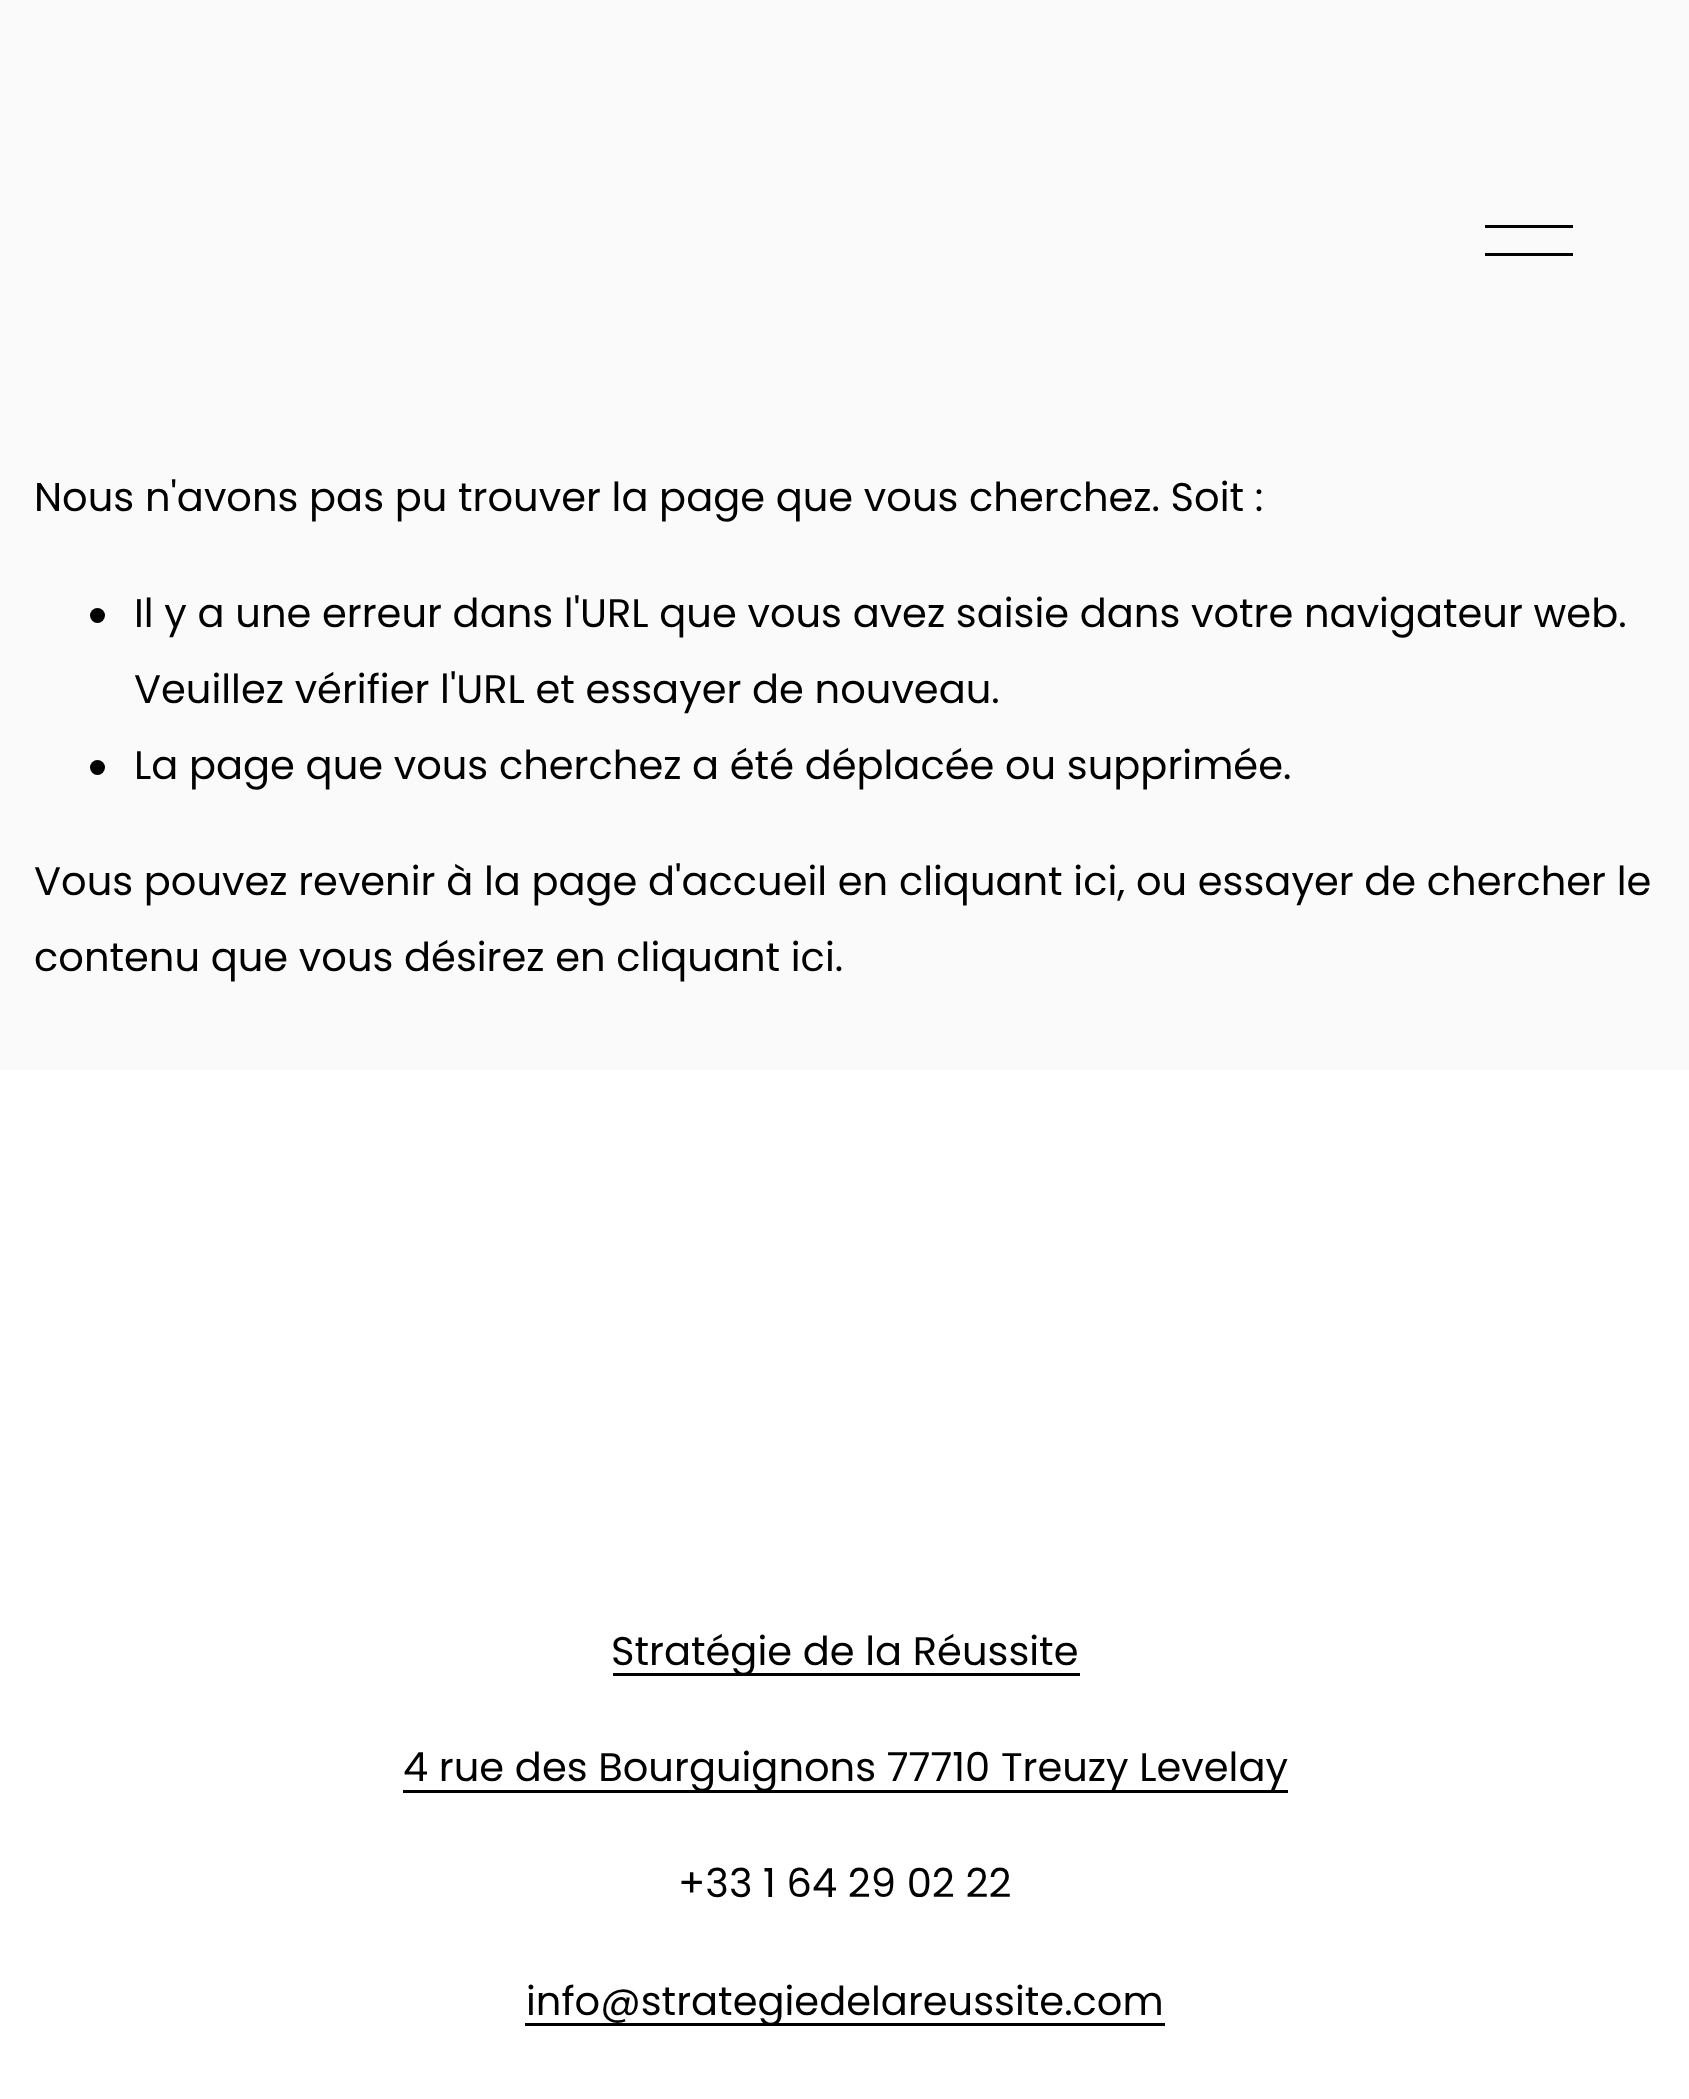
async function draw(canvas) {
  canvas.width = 1689;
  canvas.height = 2099;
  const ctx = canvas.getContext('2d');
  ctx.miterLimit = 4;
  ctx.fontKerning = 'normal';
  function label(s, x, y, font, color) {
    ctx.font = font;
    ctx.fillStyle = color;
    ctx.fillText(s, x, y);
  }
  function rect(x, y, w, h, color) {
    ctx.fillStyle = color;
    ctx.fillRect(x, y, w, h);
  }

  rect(0, 0, 1689, 2099, '#fafafa');
  rect(1485, 225, 88, 3, '#000');
  rect(1485, 253, 88, 3, '#000');
  label('Nous n\'avons pas pu trouver la page que vous cherchez. Soit :', 34, 511, '40px Poppins', '#000');
  ctx.beginPath();
  ctx.arc(97.5, 615.5, 7.5, 0, 2 * Math.PI);
  ctx.fill();
  label('Il y a une erreur dans l\'URL que vous avez saisie dans votre navigateur web.', 134, 627, '40px Poppins', '#000');
  label('Veuillez vérifier l\'URL et essayer de nouveau.', 134, 703, '40px Poppins', '#000');
  ctx.beginPath();
  ctx.arc(97.5, 767.5, 7.5, 0, 2 * Math.PI);
  ctx.fill();
  label('La page que vous cherchez a été déplacée ou supprimée.', 134, 779, '40px Poppins', '#000');
  label('Vous pouvez revenir à la page d\'accueil en cliquant ici, ou essayer de chercher le', 34, 895, '40px Poppins', '#000');
  label('contenu que vous désirez en cliquant ici.', 34, 971, '40px Poppins', '#000');
  rect(0, 1070, 1689, 1029, '#fff');
  rect(613, 1673, 467, 3, '#000');
  label('Stratégie de la Réussite', 611, 1665, '40px Poppins', '#000');
  rect(403, 1790, 885, 3, '#000');
  label('4 rue des Bourguignons 77710 Treuzy Levelay', 403, 1781, '40px Poppins', '#000');
  label('+33 1 64 29 02 22', 678, 1897, '40px Poppins', '#000');
  rect(525, 2023, 640, 3, '#000');
  label('info@strategiedelareussite.com', 526, 2015, '40px Poppins', '#000');
}

draw(document.querySelector('canvas'));
